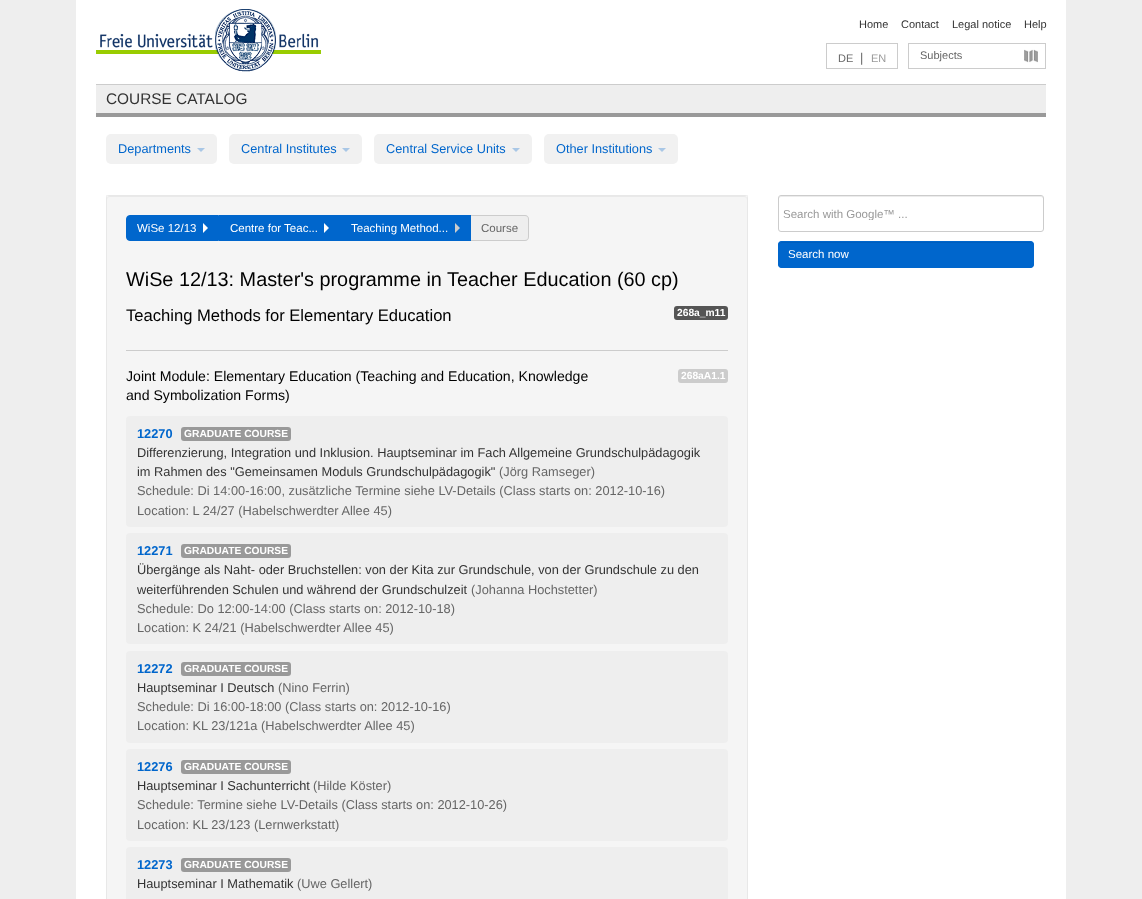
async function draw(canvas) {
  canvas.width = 1142;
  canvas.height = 899;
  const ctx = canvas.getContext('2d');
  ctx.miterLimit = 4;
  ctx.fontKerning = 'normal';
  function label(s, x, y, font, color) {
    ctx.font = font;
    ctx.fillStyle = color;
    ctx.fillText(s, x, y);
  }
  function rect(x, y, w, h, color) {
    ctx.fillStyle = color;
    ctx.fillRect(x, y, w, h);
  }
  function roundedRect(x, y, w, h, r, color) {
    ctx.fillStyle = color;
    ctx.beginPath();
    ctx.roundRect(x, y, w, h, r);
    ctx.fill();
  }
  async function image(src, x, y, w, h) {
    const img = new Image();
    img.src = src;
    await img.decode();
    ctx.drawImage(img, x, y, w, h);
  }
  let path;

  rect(0, 0, 1142, 899, '#eee');
  rect(76, 0, 990, 899, '#fff');
  await image('assets/img1.png', 96, 9, 225, 63);
  label('Home', 859, 28, '11px Liberation Sans', '#333');
  label('Contact', 901, 28, '11px Liberation Sans', '#333');
  label('Legal notice', 952, 28, '11px Liberation Sans', '#333');
  label('Help', 1024, 28, '11px Liberation Sans', '#333');
  ctx.strokeStyle = '#ccc';
  ctx.strokeRect(826.5, 43.5, 71, 25);
  label('DE', 838, 62, '11px Liberation Sans', '#666');
  label('|', 860, 62, '12.75px Liberation Sans', '#666');
  label('EN', 871, 62, '11px Liberation Sans', '#999');
  ctx.strokeRect(908.5, 43.5, 137, 25);
  await image('assets/img2.png', 1024, 49, 14, 14);
  label('Subjects', 920, 59, '11px Liberation Sans', '#666');
  rect(96, 85, 950, 28, '#eee');
  rect(96, 84, 950, 1, '#ccc');
  rect(96, 113, 950, 4, '#999');
  label('COURSE CATALOG', 106, 104, '15.4px Liberation Sans', '#333');
  roundedRect(106, 134, 111, 30, 5, '#f1f1f1');
  label('Departments', 118, 153, '12.75px Liberation Sans', '#06c');
  ctx.fillStyle = '#a9c7e6';
  path = new Path2D('M197 148H205L201 152Z');
  ctx.fill(path);
  roundedRect(229, 134, 133, 30, 5, '#f1f1f1');
  label('Central Institutes', 241, 153, '12.75px Liberation Sans', '#06c');
  ctx.fillStyle = '#a9c7e6';
  path = new Path2D('M342 148H350L346 152Z');
  ctx.fill(path);
  roundedRect(374, 134, 158, 30, 5, '#f1f1f1');
  label('Central Service Units', 386, 153, '12.75px Liberation Sans', '#06c');
  ctx.fillStyle = '#a9c7e6';
  path = new Path2D('M512 148H520L516 152Z');
  ctx.fill(path);
  roundedRect(544, 134, 134, 30, 5, '#f1f1f1');
  label('Other Institutions', 556, 153, '12.75px Liberation Sans', '#06c');
  ctx.fillStyle = '#a9c7e6';
  path = new Path2D('M658 148H666L662 152Z');
  ctx.fill(path);
  roundedRect(106, 195, 642, 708, 4, '#f5f5f5');
  ctx.fillStyle = '#e9e9e9';
  path = new Path2D('M110 197H744C746 197 747 198 747 200V199C747 197 746 196 744 196H110C108 196 107 197 107 199V200C107 198 108 197 110 197Z');
  ctx.fill(path);
  ctx.strokeStyle = '#0000000d';
  ctx.strokeRect(106.5, 195.5, 641, 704);
  ctx.fillStyle = '#06c';
  ctx.beginPath();
  ctx.roundRect(126.5, 215.5, 92, 25, [3.5, 0, 0, 3.5]);
  ctx.fill();
  ctx.strokeStyle = '#06c';
  ctx.stroke();
  label('WiSe 12/13', 137, 232, '11.5px Liberation Sans', '#fff');
  path = new Path2D('M203 233V223L208 228Z');
  ctx.fill(path);
  rect(219, 215, 252, 26, '#06c');
  label('Centre for Teac...', 230, 232, '11.5px Liberation Sans', '#fff');
  path = new Path2D('M324 233V223L329 228Z');
  ctx.fill(path);
  label('Teaching Method...', 351, 232, '11.5px Liberation Sans', '#fff');
  ctx.fillStyle = '#ccc';
  path = new Path2D('M455 233V223L460 228Z');
  ctx.fill(path);
  ctx.fillStyle = '#eee';
  ctx.beginPath();
  ctx.roundRect(471, 215, 58, 26, [0, 4, 4, 0]);
  ctx.fill();
  ctx.fillStyle = '#ccc';
  path = new Path2D('M471 215H525C527 215 529 217 529 219V237C529 239 527 241 525 241H471ZM471 216H525C527 216 528 217 528 219V237C528 239 527 240 525 240H471Z');
  ctx.fill(path, 'evenodd');
  label('Course', 481, 232, '11.5px Liberation Sans', '#666');
  label('WiSe 12/13: Master\'s programme in Teacher Education (60 cp)', 126, 286, '19.85px Liberation Sans', '#000');
  label('Teaching Methods for Elementary Education', 126, 321, '16.6px Liberation Sans', '#000');
  roundedRect(674, 306, 54, 14, 3, '#555');
  label('268a_m11', 677, 316, 'bold 10.25px Liberation Sans', '#fff');
  rect(126, 350, 602, 1, '#ccc');
  label('Joint Module: Elementary Education (Teaching and Education, Knowledge', 126, 381, '14.1px Liberation Sans', '#000');
  label('and Symbolization Forms)', 126, 400, '14.1px Liberation Sans', '#000');
  roundedRect(678, 369, 50, 14, 3, '#ccc');
  label('268aA1.1', 681, 379, 'bold 10.25px Liberation Sans', '#fff');
  roundedRect(126, 416, 602, 111, 4, '#eee');
  label('12270', 137, 438, 'bold 12.8px Liberation Sans', '#06c');
  roundedRect(181, 427, 110, 14, 3, '#999');
  label('GRADUATE COURSE', 184, 437, 'bold 10.25px Liberation Sans', '#fff');
  label('Differenzierung, Integration und Inklusion. Hauptseminar im Fach Allgemeine Grundschulpädagogik', 137, 457, '12.8px Liberation Sans', '#333');
  label('im Rahmen des "Gemeinsamen Moduls Grundschulpädagogik"', 137, 476, '12.8px Liberation Sans', '#333');
  label('(Jörg Ramseger)', 499, 476, '12.8px Liberation Sans', '#666');
  label('Schedule: Di 14:00-16:00, zusätzliche Termine siehe LV-Details (Class starts on: 2012-10-16)', 137, 495, '12.8px Liberation Sans', '#666');
  label('Location: L 24/27 (Habelschwerdter Allee 45)', 137, 515, '12.8px Liberation Sans', '#666');
  roundedRect(126, 533, 602, 111, 4, '#eee');
  label('12271', 137, 555, 'bold 12.8px Liberation Sans', '#06c');
  roundedRect(181, 544, 110, 14, 3, '#999');
  label('GRADUATE COURSE', 184, 554, 'bold 10.25px Liberation Sans', '#fff');
  label('Übergänge als Naht- oder Bruchstellen: von der Kita zur Grundschule, von der Grundschule zu den', 137, 574, '12.8px Liberation Sans', '#333');
  label('weiterführenden Schulen und während der Grundschulzeit', 137, 594, '12.8px Liberation Sans', '#333');
  label('(Johanna Hochstetter)', 471, 594, '12.8px Liberation Sans', '#666');
  label('Schedule: Do 12:00-14:00 (Class starts on: 2012-10-18)', 137, 613, '12.8px Liberation Sans', '#666');
  label('Location: K 24/21 (Habelschwerdter Allee 45)', 137, 632, '12.8px Liberation Sans', '#666');
  roundedRect(126, 651, 602, 92, 4, '#eee');
  label('12272', 137, 673, 'bold 12.8px Liberation Sans', '#06c');
  roundedRect(181, 662, 110, 14, 3, '#999');
  label('GRADUATE COURSE', 184, 672, 'bold 10.25px Liberation Sans', '#fff');
  label('Hauptseminar I Deutsch', 137, 692, '12.8px Liberation Sans', '#333');
  label('(Nino Ferrin)', 278, 692, '12.8px Liberation Sans', '#666');
  label('Schedule: Di 16:00-18:00 (Class starts on: 2012-10-16)', 137, 711, '12.8px Liberation Sans', '#666');
  label('Location: KL 23/121a (Habelschwerdter Allee 45)', 137, 730, '12.8px Liberation Sans', '#666');
  roundedRect(126, 749, 602, 92, 4, '#eee');
  label('12276', 137, 771, 'bold 12.8px Liberation Sans', '#06c');
  roundedRect(181, 760, 110, 14, 3, '#999');
  label('GRADUATE COURSE', 184, 770, 'bold 10.25px Liberation Sans', '#fff');
  label('Hauptseminar I Sachunterricht', 137, 790, '12.8px Liberation Sans', '#333');
  label('(Hilde Köster)', 313, 790, '12.8px Liberation Sans', '#666');
  label('Schedule: Termine siehe LV-Details (Class starts on: 2012-10-26)', 137, 809, '12.8px Liberation Sans', '#666');
  label('Location: KL 23/123 (Lernwerkstatt)', 137, 829, '12.8px Liberation Sans', '#666');
  roundedRect(126, 847, 602, 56, 4, '#eee');
  label('12273', 137, 869, 'bold 12.8px Liberation Sans', '#06c');
  roundedRect(181, 858, 110, 14, 3, '#999');
  label('GRADUATE COURSE', 184, 868, 'bold 10.25px Liberation Sans', '#fff');
  label('Hauptseminar I Mathematik', 137, 888, '12.8px Liberation Sans', '#333');
  label('(Uwe Gellert)', 297, 888, '12.8px Liberation Sans', '#666');
  ctx.fillStyle = '#ececec';
  path = new Path2D('M781 197H1041C1042 197 1043 198 1043 199V198C1043 197 1042 196 1041 196H781C780 196 779 197 779 198V199C779 198 780 197 781 197Z');
  ctx.fill(path);
  ctx.beginPath();
  ctx.roundRect(778.5, 195.5, 265, 36, 2.5);
  ctx.strokeStyle = '#ccc';
  ctx.stroke();
  ctx.save();
  ctx.beginPath();
  ctx.rect(783, 208, 256, 12);
  ctx.clip();
  label('Search with Google™ ...', 783, 218, '11.5px Liberation Sans', '#999');
  ctx.restore();
  roundedRect(778, 241, 256, 27, 4, '#06c');
  ctx.fillStyle = '#005ebd';
  path = new Path2D('M782 243H1031L1033 244V246C1033 244 1032 242 1030 242H782C780 242 779 244 779 246C779 244 780 243 782 243Z');
  ctx.fill(path);
  ctx.beginPath();
  ctx.roundRect(778.5, 241.5, 255, 26, 3.5);
  ctx.strokeStyle = '#06c';
  ctx.stroke();
  label('Search now', 788, 258, '11.5px Liberation Sans', '#fff');
}

draw(document.querySelector('canvas'));
